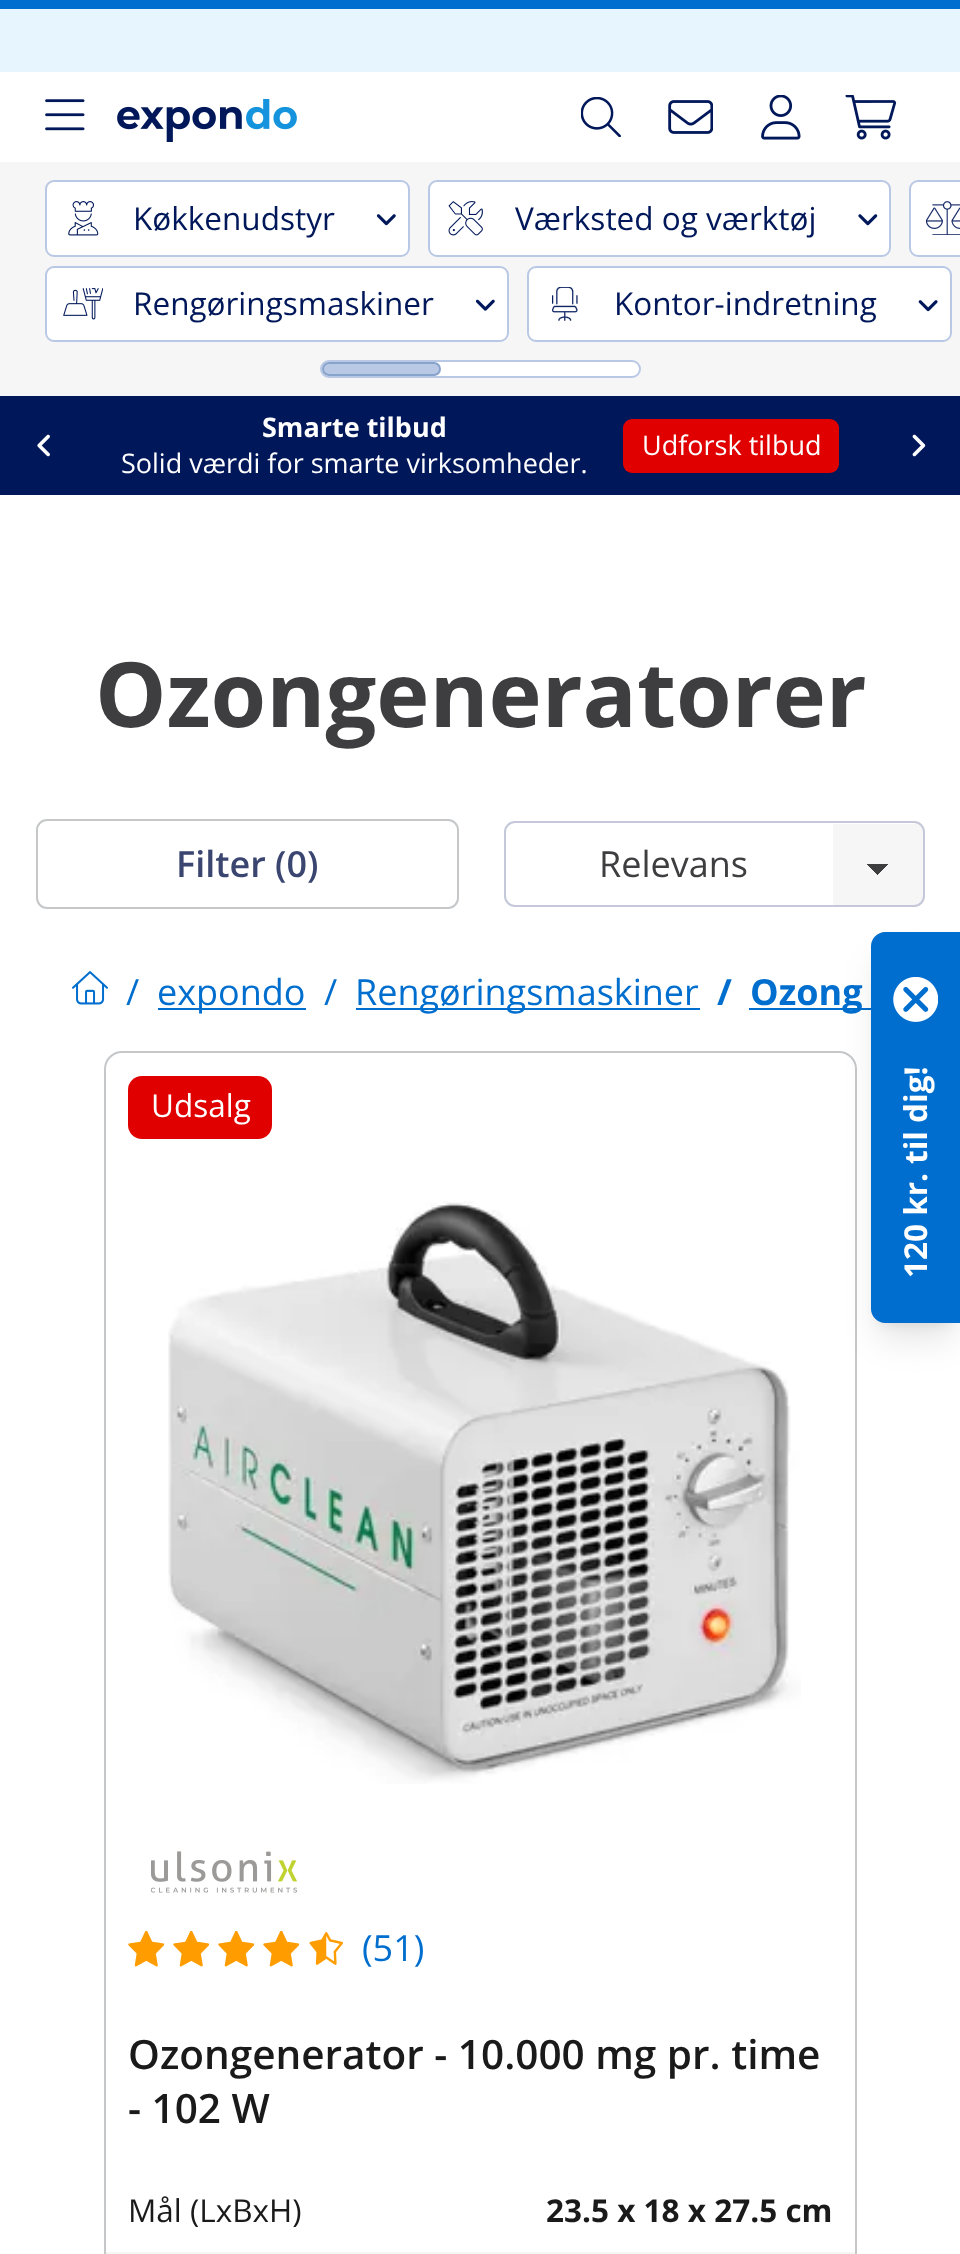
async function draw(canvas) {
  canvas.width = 960;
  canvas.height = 2254;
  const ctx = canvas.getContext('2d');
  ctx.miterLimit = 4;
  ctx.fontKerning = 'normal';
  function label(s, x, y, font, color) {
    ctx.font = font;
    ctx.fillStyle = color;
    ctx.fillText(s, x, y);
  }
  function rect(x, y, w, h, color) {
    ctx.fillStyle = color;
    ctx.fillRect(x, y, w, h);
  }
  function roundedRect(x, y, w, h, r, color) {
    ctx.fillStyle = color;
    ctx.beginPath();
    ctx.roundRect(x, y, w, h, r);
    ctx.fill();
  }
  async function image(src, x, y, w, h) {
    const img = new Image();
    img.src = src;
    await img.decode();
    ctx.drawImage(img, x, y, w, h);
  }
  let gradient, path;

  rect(0, 0, 960, 2254, '#fff');
  rect(0, 0, 960, 9, '#006ece');
  rect(0, 9, 960, 63, '#e7f5ff');
  await image('assets/img1.png', 45, 99, 40, 32);
  await image('assets/img2.png', 117, 99, 180, 43);
  await image('assets/img3.png', 581, 97, 40, 40);
  await image('assets/img4.png', 668, 100, 45, 34);
  await image('assets/img5.png', 761, 95, 40, 45);
  await image('assets/img6.png', 845, 95, 52, 45);
  rect(0, 162, 960, 234, '#f6f6f6');
  ctx.fillStyle = '#fff';
  ctx.beginPath();
  ctx.roundRect(46, 181, 363, 75, 8);
  ctx.fill();
  ctx.strokeStyle = '#b9c8e4';
  ctx.lineWidth = 2;
  ctx.stroke();
  await image('assets/img7.png', 68, 201, 31, 35);
  label('Køkkenudstyr', 133, 230, '31.5px Open Sans', '#00175a');
  await image('assets/img8.png', 376, 214, 20, 12);
  ctx.fillStyle = '#fff';
  ctx.beginPath();
  ctx.roundRect(429, 181, 461, 75, 8);
  ctx.fill();
  ctx.stroke();
  await image('assets/img9.png', 448, 201, 35, 35);
  label('Værksted og værktøj', 515, 230, '31.5px Open Sans', '#00175a');
  await image('assets/img10.png', 858, 214, 20, 12);
  ctx.fillStyle = '#fff';
  path = new Path2D('M918 180H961V257H918C913 257 909 253 909 248V189C909 184 913 180 918 180Z');
  ctx.fill(path);
  ctx.beginPath();
  ctx.roundRect(910, 181, 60, 75, 8);
  ctx.stroke();
  await image('assets/img11.png', 926, 201, 34, 34);
  ctx.beginPath();
  ctx.roundRect(46, 267, 462, 74, 8);
  ctx.fill();
  ctx.stroke();
  await image('assets/img12.png', 63, 288, 40, 32);
  label('Rengøringsmaskiner', 133, 315, '31.5px Open Sans', '#00175a');
  await image('assets/img13.png', 475, 299, 20, 12);
  ctx.fillStyle = '#fff';
  ctx.beginPath();
  ctx.roundRect(528, 267, 423, 74, 8);
  ctx.fill();
  ctx.stroke();
  await image('assets/img14.png', 552, 287, 26, 34);
  label('Kontor-indretning', 614, 315, '31.5px Open Sans', '#00175a');
  await image('assets/img15.png', 918, 300, 20, 12);
  ctx.fillStyle = '#fff';
  ctx.beginPath();
  ctx.roundRect(321, 361, 319, 16, 8);
  ctx.fill();
  ctx.stroke();
  ctx.fillStyle = '#b9c8e4';
  ctx.beginPath();
  ctx.roundRect(323, 363, 117, 12, 6);
  ctx.fill();
  ctx.strokeStyle = '#88a3cb';
  ctx.stroke();
  rect(0, 396, 960, 99, '#00175a');
  await image('assets/img16.png', 37, 434, 13, 23);
  label('Smarte tilbud', 262, 437, 'bold 27px Open Sans', '#fff');
  label('Solid værdi for smarte virksomheder.', 121, 473, '27px Open Sans', '#fff');
  roundedRect(623, 419, 216, 54, 9, '#e00000');
  label('Udforsk tilbud', 642, 455, '27px Open Sans', '#fff');
  await image('assets/img17.png', 912, 434, 14, 23);
  label('Ozongeneratorer', 95, 727, 'bold 90px Open Sans', '#3e3e40');
  ctx.beginPath();
  ctx.roundRect(37, 820, 421, 88, 10);
  ctx.strokeStyle = '#c5c7c9';
  ctx.stroke();
  label('Filter (0)', 176, 877, '600 36px Open Sans', '#3a4570');
  ctx.save();
  ctx.beginPath();
  ctx.roundRect(504, 821, 421, 86, 11);
  ctx.clip();
  rect(833, 824, 90, 83, '#f6f6f6');
  ctx.restore();
  gradient = ctx.createLinearGradient(878, 864, 889, 875);
  gradient.addColorStop(0.5, '#3e3e40');
  gradient.addColorStop(0.5, '#f6f6f6');
  ctx.fillStyle = gradient;
  ctx.fillRect(878, 864, 11, 10);
  gradient = ctx.createLinearGradient(866, 875, 878, 864);
  gradient.addColorStop(0.5, '#f6f6f6');
  gradient.addColorStop(0.5, '#3e3e40');
  ctx.fillStyle = gradient;
  ctx.fillRect(867, 864, 11, 11);
  ctx.beginPath();
  ctx.roundRect(505, 822, 419, 84, 10);
  ctx.strokeStyle = '#c4c8d8';
  ctx.stroke();
  label('Relevans', 599, 877, '36px Open Sans', '#3e3e40');
  await image('assets/img18.png', 72, 971, 36, 34);
  label('/', 126, 1005, '36px Open Sans', '#006ece');
  rect(158, 1008, 148, 2, '#006ece');
  label('expondo', 157, 1005, '36px Open Sans', '#006ece');
  label('/', 324, 1005, '36px Open Sans', '#006ece');
  rect(356, 1008, 344, 2, '#006ece');
  label('Rengøringsmaskiner', 355, 1005, '36px Open Sans', '#006ece');
  label('/', 717, 1005, 'bold 36px Open Sans', '#006ece');
  rect(749, 1008, 122, 2, '#006ece');
  label('Ozong', 750, 1005, 'bold 36px Open Sans', '#006ece');
  ctx.beginPath();
  ctx.roundRect(105, 1052, 751, 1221, 17);
  ctx.strokeStyle = '#c5c7c9';
  ctx.stroke();
  roundedRect(128, 1076, 144, 63, 14, '#e00000');
  label('Udsalg', 151, 1117, '31.5px Open Sans', '#fff');
  await image('assets/img19.png', 168, 1201, 633, 583);
  await image('assets/img20.png', 151, 1851, 146, 42);
  await image('assets/img21.png', 128, 1931, 36, 36);
  await image('assets/img21.png', 173, 1931, 36, 36);
  await image('assets/img21.png', 218, 1931, 36, 36);
  await image('assets/img21.png', 263, 1931, 36, 36);
  await image('assets/img22.png', 309, 1932, 34, 33);
  label('(51)', 362, 1961, '36px Open Sans', '#006ece');
  label('Ozongenerator - 10.000 mg pr. time', 128, 2069, '600 40.5px Open Sans', '#1a1a1a');
  label('- 102 W', 128, 2123, '600 40.5px Open Sans', '#1a1a1a');
  label('Mål (LxBxH)', 128, 2222, '31.5px Open Sans', '#1a1a1a');
  label('23.5 x 18 x 27.5 cm', 546, 2222, 'bold 31.5px Open Sans', '#1a1a1a');
  rect(106, 2252, 749, 2, '#f6f6f6');
  ctx.fillStyle = '#0000001a';
  ctx.filter = 'blur(7px)';
  ctx.beginPath();
  ctx.roundRect(880, 950, 72, 373, 5);
  ctx.fill();
  ctx.filter = 'none';
  ctx.filter = 'blur(17px)';
  ctx.beginPath();
  ctx.roundRect(878, 961, 76, 378, 7);
  ctx.fill();
  ctx.filter = 'none';
  ctx.fillStyle = '#006ece';
  path = new Path2D('M885 932H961V1323H885C877.5 1323 871 1316.5 871 1309V946C871 938.5 877.5 932 885 932Z');
  ctx.fill(path);
  await image('assets/img23.png', 893, 977, 45, 45);
  ctx.fillStyle = '#fff';
  ctx.save();
  ctx.translate(927, 1164);
  ctx.rotate(-90 * Math.PI / 180);
  ctx.fillText('til dig!', 0, 0);
  ctx.restore();
  ctx.save();
  ctx.translate(927, 1278);
  ctx.rotate(-90 * Math.PI / 180);
  ctx.fillText('120 kr.', 0, 0);
  ctx.restore();
}

draw(document.querySelector('canvas'));
